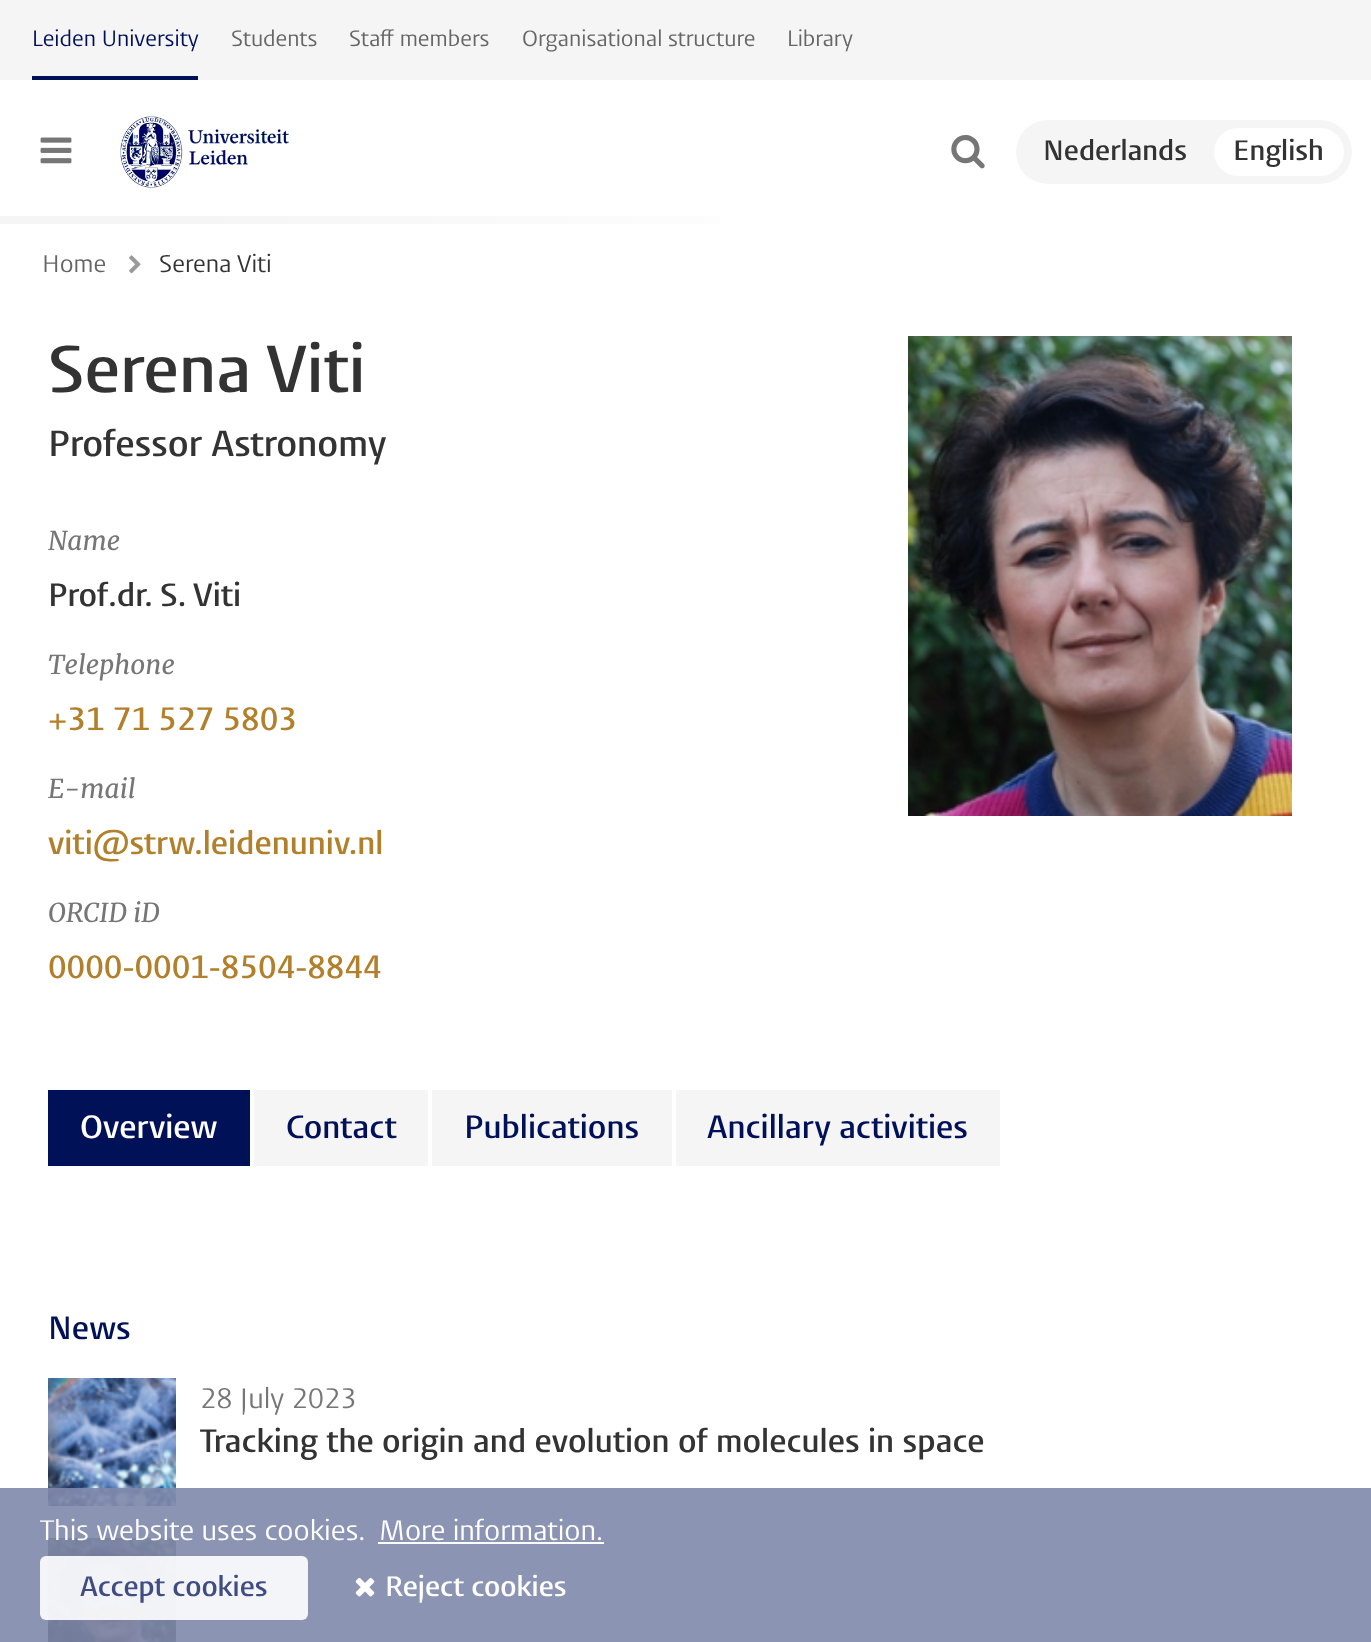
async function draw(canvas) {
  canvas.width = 1371;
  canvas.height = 1642;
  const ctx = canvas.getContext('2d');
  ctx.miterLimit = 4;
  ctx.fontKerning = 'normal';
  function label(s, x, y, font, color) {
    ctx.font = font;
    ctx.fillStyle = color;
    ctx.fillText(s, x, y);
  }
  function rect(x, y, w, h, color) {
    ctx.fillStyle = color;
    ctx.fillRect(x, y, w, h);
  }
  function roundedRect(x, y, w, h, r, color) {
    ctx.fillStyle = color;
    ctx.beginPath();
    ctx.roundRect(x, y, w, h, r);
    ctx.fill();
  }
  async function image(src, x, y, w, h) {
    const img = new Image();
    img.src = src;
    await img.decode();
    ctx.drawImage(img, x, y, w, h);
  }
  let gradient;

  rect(0, 0, 1371, 1642, '#fff');
  gradient = ctx.createLinearGradient(0, 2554, 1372, 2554);
  gradient.addColorStop(0, '#f5f5f5');
  gradient.addColorStop(0.15, '#f5f5f5');
  gradient.addColorStop(0.65, '#fff');
  ctx.fillStyle = gradient;
  ctx.fillRect(0, 216, 720, 8);
  rect(0, 0, 1371, 80, '#f5f5f5');
  label('Leiden University', 32, 46, '22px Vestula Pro', '#001158');
  rect(32, 76, 166, 4, '#001158');
  label('Students', 231, 46, '22px Vestula Pro', '#666');
  label('Staff members', 349, 46, '22px Vestula Pro', '#666');
  label('Organisational structure', 522, 46, '22px Vestula Pro', '#666');
  label('Library', 787, 46, '22px Vestula Pro', '#666');
  await image('assets/img1.png', 40, 137, 32, 27);
  await image('assets/img2.png', 120, 116, 169, 72);
  await image('assets/img3.png', 951, 134, 34, 35);
  roundedRect(1016, 120, 336, 64, 32, '#f5f5f5');
  label('Nederlands', 1043, 160, '600 28px Vestula Pro', '#333');
  roundedRect(1214, 128, 130, 48, 24, '#fff');
  label('English', 1233, 160, '600 28px Vestula Pro', '#333');
  label('Home', 42, 272, '24px Vestula Pro', '#666');
  await image('assets/img4.png', 129, 255, 12, 19);
  label('Serena Viti', 159, 272, '24px Vestula Pro', '#333');
  label('Serena Viti', 48, 392, '600 66px Vestula Pro', '#333');
  label('Professor Astronomy', 48, 456, '600 36px Vestula Pro', '#333');
  label('Name', 48, 550, 'italic 26px Merriweather', '#767676');
  label('Prof.dr. S.', 48, 606, '600 32px Vestula Pro', '#333');
  label('Viti', 193, 606, '600 32px Vestula Pro', '#333');
  label('Telephone', 48, 674, 'italic 26px Merriweather', '#767676');
  label('+31 71 527 5803', 48, 730, '600 32px Vestula Pro', '#b27f2b');
  label('E-mail', 48, 798, 'italic 26px Merriweather', '#767676');
  label('viti@strw.leidenuniv.nl', 48, 854, '600 32px Vestula Pro', '#b27f2b');
  label('ORCID iD', 48, 922, 'italic 26px Merriweather', '#767676');
  label('0000-0001-8504-8844', 48, 978, '600 32px Vestula Pro', '#b27f2b');
  await image('assets/img5.png', 908, 336, 384, 480);
  rect(48, 1090, 202, 76, '#001158');
  label('Overview', 80, 1138, '600 32px Vestula Pro', '#fff');
  rect(254, 1090, 174, 76, '#f5f5f5');
  label('Contact', 286, 1138, '600 32px Vestula Pro', '#001158');
  rect(432, 1090, 240, 76, '#f5f5f5');
  label('Publications', 464, 1138, '600 32px Vestula Pro', '#001158');
  rect(676, 1090, 324, 76, '#f5f5f5');
  label('Ancillary activities', 707, 1138, '600 32px Vestula Pro', '#001158');
  label('News', 48, 1339, '600 32px Vestula Pro', '#001158');
  await image('assets/img6.png', 48, 1378, 128, 128);
  label('28 July 2023', 200, 1408, '28px Vestula Pro', '#767676');
  label('Tracking the origin and evolution of molecules in space', 200, 1452, '600 32px Vestula Pro', '#333');
  await image('assets/img7.png', 48, 1538, 128, 104);
  rect(0, 1488, 1371, 154, '#7f88abe6');
  label('This website uses cookies.', 40, 1540, '28px Vestula Pro', '#fff');
  label('More information.', 379, 1540, '28px Vestula Pro', '#fff');
  rect(378, 1542, 226, 2, '#fff');
  roundedRect(40, 1556, 268, 64, 6, '#ffffffe6');
  label('Accept cookies', 80, 1596, '600 28px Vestula Pro', '#404d82');
  await image('assets/img8.png', 355, 1577, 20, 20);
  label('Reject cookies', 385, 1596, '600 28px Vestula Pro', '#fff');
}

draw(document.querySelector('canvas'));
